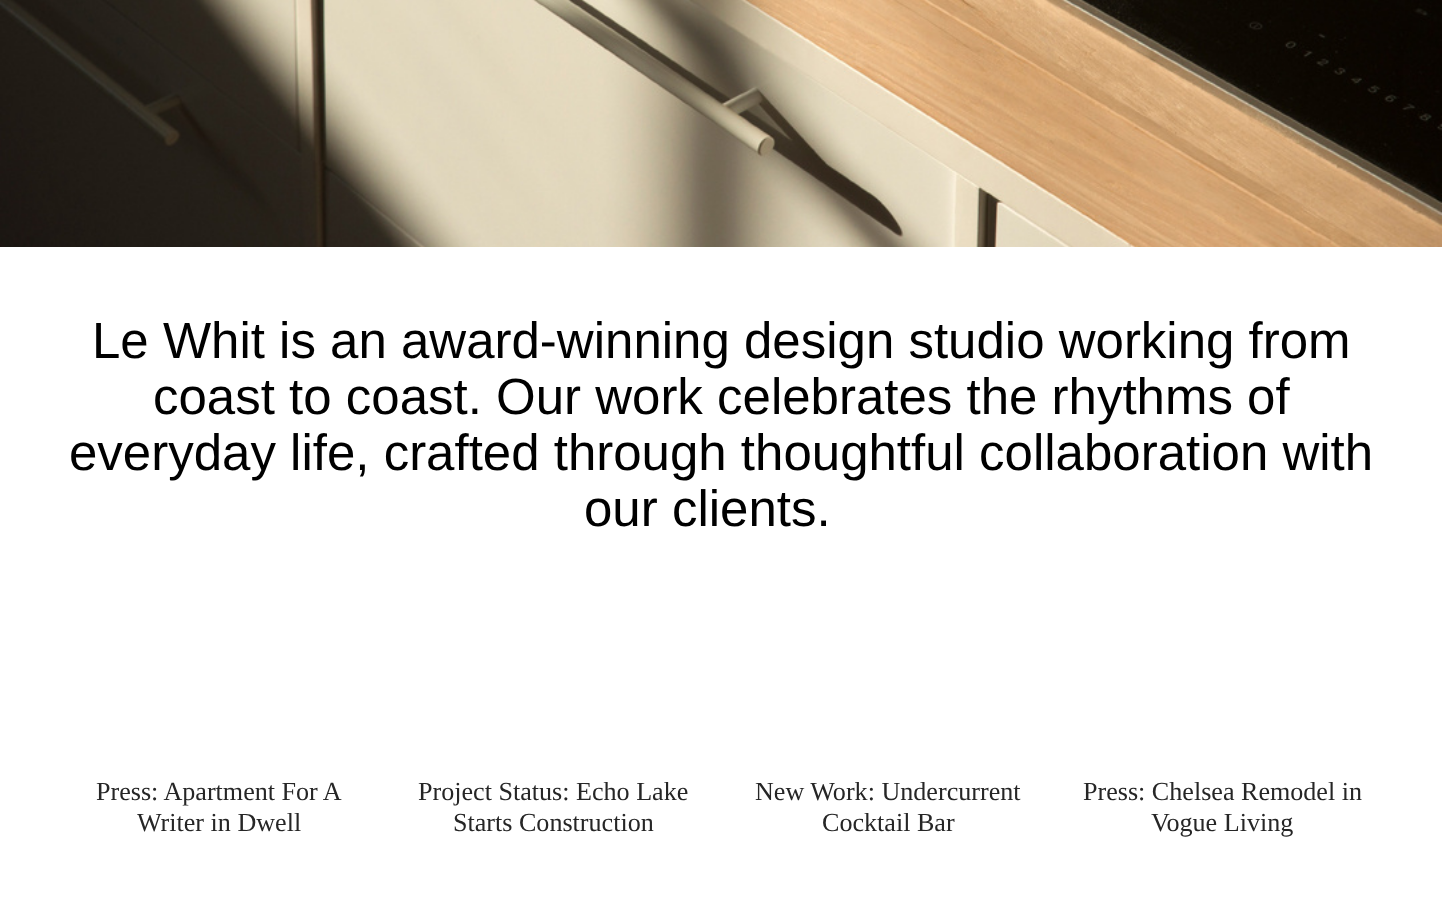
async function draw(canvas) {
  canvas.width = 1442;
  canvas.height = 908;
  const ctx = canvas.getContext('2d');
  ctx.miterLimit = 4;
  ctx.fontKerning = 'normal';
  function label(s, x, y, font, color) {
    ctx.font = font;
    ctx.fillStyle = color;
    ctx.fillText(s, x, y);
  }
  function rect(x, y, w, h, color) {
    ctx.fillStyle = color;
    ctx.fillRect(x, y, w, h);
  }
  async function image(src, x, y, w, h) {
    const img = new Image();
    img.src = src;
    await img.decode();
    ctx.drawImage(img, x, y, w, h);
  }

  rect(0, 0, 1442, 908, '#fff');
  await image('assets/img1.png', 0, 0, 1442, 247);
  label('Le Whit is an award-winning design studio working from', 92, 358, '51px Liberation Sans', '#000');
  label('coast to coast. Our work celebrates the rhythms of', 153, 414, '51px Liberation Sans', '#000');
  label('everyday life, crafted through thoughtful collaboration with', 69, 470, '51px Liberation Sans', '#000');
  label('our clients.', 584, 526, '51px Liberation Sans', '#000');
  label('Press: Apartment For A', 96, 800, '26.1px Liberation Serif', '#262626');
  label('Writer in Dwell', 137, 831, '26.1px Liberation Serif', '#262626');
  label('Project Status: Echo Lake', 418, 800, '26.1px Liberation Serif', '#262626');
  label('Starts Construction', 453, 831, '26.1px Liberation Serif', '#262626');
  label('New Work: Undercurrent', 755, 800, '26.1px Liberation Serif', '#262626');
  label('Cocktail Bar', 822, 831, '26.1px Liberation Serif', '#262626');
  label('Press: Chelsea Remodel in', 1083, 800, '26.1px Liberation Serif', '#262626');
  label('Vogue Living', 1151, 831, '26.1px Liberation Serif', '#262626');
}

draw(document.querySelector('canvas'));
